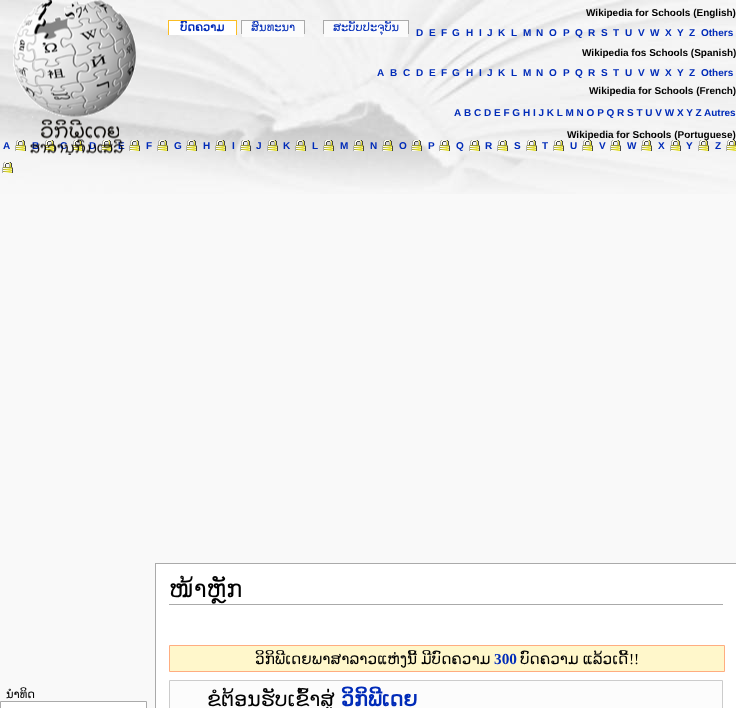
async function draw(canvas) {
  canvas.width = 736;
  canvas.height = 708;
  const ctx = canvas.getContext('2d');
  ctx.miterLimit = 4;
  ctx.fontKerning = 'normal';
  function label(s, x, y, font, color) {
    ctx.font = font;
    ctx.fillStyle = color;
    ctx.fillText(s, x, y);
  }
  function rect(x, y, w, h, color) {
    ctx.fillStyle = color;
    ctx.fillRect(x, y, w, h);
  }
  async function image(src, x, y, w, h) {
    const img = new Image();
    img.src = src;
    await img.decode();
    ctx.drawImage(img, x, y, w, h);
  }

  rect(0, 0, 736, 708, '#f9f9f9');
  await image('assets/img1.png', 0, 0, 736, 194);
  label('Wikipedia for Schools (English)', 586, 16, 'bold 10px Liberation Sans', '#000');
  await image('assets/img3.png', 15, 140, 11, 11);
  label('B', 32, 149, 'bold 10px Liberation Sans', '#002bb8');
  await image('assets/img4.png', 44, 140, 11, 11);
  label('C', 60, 149, 'bold 10px Liberation Sans', '#002bb8');
  await image('assets/img5.png', 72, 140, 11, 11);
  label('D', 89, 149, 'bold 10px Liberation Sans', '#002bb8');
  await image('assets/img6.png', 101, 140, 11, 11);
  label('E', 118, 149, 'bold 10px Liberation Sans', '#002bb8');
  await image('assets/img7.png', 129, 140, 11, 11);
  await image('assets/img2.png', 13, 0, 123, 155);
  rect(169, 21, 67, 14, '#fff');
  label('ບົດຄວາມ', 180, 31, 'bold 11.5px DejaVu Sans', '#002bb8');
  rect(168, 20, 69, 1, '#fabd23');
  rect(236, 20, 1, 15, '#fabd23');
  rect(168, 20, 1, 15, '#fabd23');
  rect(241, 20, 64, 1, '#aaa');
  rect(242, 21, 62, 16, '#fbfbfb');
  label('ສົນທະນາ', 251, 31, '11.5px DejaVu Sans', '#002bb8');
  rect(304, 20, 1, 14, '#aaa');
  rect(241, 20, 1, 14, '#aaa');
  rect(324, 21, 84, 16, '#fbfbfb');
  label('ສະບັບປະຈຸບັນ', 333, 31, '11.5px DejaVu Sans', '#002bb8');
  rect(323, 20, 86, 1, '#aaa');
  rect(408, 20, 1, 14, '#aaa');
  rect(323, 20, 1, 14, '#aaa');
  label('ນຳທິດ', 6, 698, '11.5px DejaVu Sans', '#000');
  ctx.fillStyle = '#fff';
  ctx.beginPath();
  ctx.rect(0.5, 701.5, 146, 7);
  ctx.fill();
  ctx.strokeStyle = '#aaa';
  ctx.stroke();
  rect(156, 564, 580, 144, '#fff');
  rect(155, 563, 581, 1, '#aaa');
  rect(155, 563, 1, 145, '#aaa');
  rect(169, 604, 554, 1, '#aaa');
  label('ໜ້າຫຼັກ', 169, 597, '24px DejaVu Sans', '#000');
  ctx.fillStyle = '#fff7cb';
  ctx.beginPath();
  ctx.rect(169.5, 645.5, 555, 26);
  ctx.fill();
  ctx.strokeStyle = '#ffad80';
  ctx.stroke();
  ctx.wordSpacing = '-1px';
  label('ວິກິພີເດຍພາສາລາວແຫ່ງນີ້ ມີບົດຄວາມ', 255, 664, '15.25px DejaVu Sans', '#000');
  ctx.wordSpacing = '0px';
  label('300', 494, 664, 'bold 15.25px Liberation Serif', '#002bb8');
  ctx.wordSpacing = '-1px';
  label('ບົດຄວາມ ແລ້ວເດີ້', 520, 664, '15.25px DejaVu Sans', '#000');
  ctx.wordSpacing = '0px';
  label('!!', 629, 664, '15.25px Liberation Serif', '#000');
  ctx.fillStyle = '#fcfcfc';
  ctx.beginPath();
  ctx.rect(169.5, 680.5, 553, 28);
  ctx.fill();
  ctx.strokeStyle = '#ccc';
  ctx.stroke();
  label('ຂໍຕ້ອນຮັບເຂົ້າສູ່', 207, 706, '20.5px DejaVu Sans', '#000');
  label('ວິກິພີເດຍ', 341, 706, 'bold 20.5px DejaVu Sans', '#002bb8');
  label('D', 416, 36, 'bold 10px Liberation Sans', '#002bb8');
  label('E', 429, 36, 'bold 10px Liberation Sans', '#002bb8');
  label('F', 441, 36, 'bold 10px Liberation Sans', '#002bb8');
  label('G', 452, 36, 'bold 10px Liberation Sans', '#002bb8');
  label('H', 466, 36, 'bold 10px Liberation Sans', '#002bb8');
  label('I', 479, 36, 'bold 10px Liberation Sans', '#002bb8');
  label('J', 487, 36, 'bold 10px Liberation Sans', '#002bb8');
  label('K', 498, 36, 'bold 10px Liberation Sans', '#002bb8');
  label('L', 511, 36, 'bold 10px Liberation Sans', '#002bb8');
  label('M', 523, 36, 'bold 10px Liberation Sans', '#002bb8');
  label('N', 536, 36, 'bold 10px Liberation Sans', '#002bb8');
  label('O', 549, 36, 'bold 10px Liberation Sans', '#002bb8');
  label('P', 563, 36, 'bold 10px Liberation Sans', '#002bb8');
  label('Q', 575, 36, 'bold 10px Liberation Sans', '#002bb8');
  label('R', 588, 36, 'bold 10px Liberation Sans', '#002bb8');
  label('S', 601, 36, 'bold 10px Liberation Sans', '#002bb8');
  label('T', 613, 36, 'bold 10px Liberation Sans', '#002bb8');
  label('U', 625, 36, 'bold 10px Liberation Sans', '#002bb8');
  label('V', 638, 36, 'bold 10px Liberation Sans', '#002bb8');
  label('W', 650, 36, 'bold 10px Liberation Sans', '#002bb8');
  label('X', 665, 36, 'bold 10px Liberation Sans', '#002bb8');
  label('Y', 677, 36, 'bold 10px Liberation Sans', '#002bb8');
  label('Z', 689, 36, 'bold 10px Liberation Sans', '#002bb8');
  label('Others', 701, 36, 'bold 10px Liberation Sans', '#002bb8');
  label('Wikipedia fos Schools (Spanish)', 582, 56, 'bold 10px Liberation Sans', '#000');
  label('A', 377, 76, 'bold 10px Liberation Sans', '#002bb8');
  label('B', 390, 76, 'bold 10px Liberation Sans', '#002bb8');
  label('C', 403, 76, 'bold 10px Liberation Sans', '#002bb8');
  label('D', 416, 76, 'bold 10px Liberation Sans', '#002bb8');
  label('E', 429, 76, 'bold 10px Liberation Sans', '#002bb8');
  label('F', 441, 76, 'bold 10px Liberation Sans', '#002bb8');
  label('G', 452, 76, 'bold 10px Liberation Sans', '#002bb8');
  label('H', 466, 76, 'bold 10px Liberation Sans', '#002bb8');
  label('I', 479, 76, 'bold 10px Liberation Sans', '#002bb8');
  label('J', 487, 76, 'bold 10px Liberation Sans', '#002bb8');
  label('K', 498, 76, 'bold 10px Liberation Sans', '#002bb8');
  label('L', 511, 76, 'bold 10px Liberation Sans', '#002bb8');
  label('M', 523, 76, 'bold 10px Liberation Sans', '#002bb8');
  label('N', 536, 76, 'bold 10px Liberation Sans', '#002bb8');
  label('O', 549, 76, 'bold 10px Liberation Sans', '#002bb8');
  label('P', 563, 76, 'bold 10px Liberation Sans', '#002bb8');
  label('Q', 575, 76, 'bold 10px Liberation Sans', '#002bb8');
  label('R', 588, 76, 'bold 10px Liberation Sans', '#002bb8');
  label('S', 601, 76, 'bold 10px Liberation Sans', '#002bb8');
  label('T', 613, 76, 'bold 10px Liberation Sans', '#002bb8');
  label('U', 625, 76, 'bold 10px Liberation Sans', '#002bb8');
  label('V', 638, 76, 'bold 10px Liberation Sans', '#002bb8');
  label('W', 650, 76, 'bold 10px Liberation Sans', '#002bb8');
  label('X', 665, 76, 'bold 10px Liberation Sans', '#002bb8');
  label('Y', 677, 76, 'bold 10px Liberation Sans', '#002bb8');
  label('Z', 689, 76, 'bold 10px Liberation Sans', '#002bb8');
  label('Others', 701, 76, 'bold 10px Liberation Sans', '#002bb8');
  label('Wikipedia for Schools (French)', 589, 94, 'bold 10px Liberation Sans', '#000');
  label('A', 454, 116, 'bold 10px Liberation Sans', '#002bb8');
  label('B C D E F G H I J K L M N O P Q R S T U V W X Y Z', 464, 116, 'bold 10px Liberation Sans', '#002bb8');
  label('Autres', 704, 116, 'bold 10px Liberation Sans', '#002bb8');
  label('Wikipedia for Schools (Portuguese)', 567, 138, 'bold 10px Liberation Sans', '#000');
  label('A', 3, 149, 'bold 10px Liberation Sans', '#002bb8');
  label('F', 146, 149, 'bold 10px Liberation Sans', '#002bb8');
  await image('assets/img8.png', 157, 140, 11, 11);
  label('G', 174, 149, 'bold 10px Liberation Sans', '#002bb8');
  await image('assets/img9.png', 186, 140, 11, 11);
  label('H', 203, 149, 'bold 10px Liberation Sans', '#002bb8');
  await image('assets/img10.png', 215, 140, 11, 11);
  label('I', 232, 149, 'bold 10px Liberation Sans', '#002bb8');
  await image('assets/img11.png', 240, 140, 11, 11);
  label('J', 256, 149, 'bold 10px Liberation Sans', '#002bb8');
  await image('assets/img12.png', 267, 140, 11, 11);
  label('K', 283, 149, 'bold 10px Liberation Sans', '#002bb8');
  await image('assets/img13.png', 295, 140, 11, 11);
  label('L', 312, 149, 'bold 10px Liberation Sans', '#002bb8');
  await image('assets/img14.png', 323, 140, 11, 11);
  label('M', 340, 149, 'bold 10px Liberation Sans', '#002bb8');
  await image('assets/img15.png', 353, 140, 11, 11);
  label('N', 370, 149, 'bold 10px Liberation Sans', '#002bb8');
  await image('assets/img16.png', 382, 140, 11, 11);
  label('O', 399, 149, 'bold 10px Liberation Sans', '#002bb8');
  await image('assets/img17.png', 411, 140, 11, 11);
  label('P', 428, 149, 'bold 10px Liberation Sans', '#002bb8');
  await image('assets/img18.png', 439, 140, 11, 11);
  label('Q', 456, 149, 'bold 10px Liberation Sans', '#002bb8');
  await image('assets/img19.png', 469, 140, 11, 11);
  label('R', 485, 149, 'bold 10px Liberation Sans', '#002bb8');
  await image('assets/img20.png', 497, 140, 11, 11);
  label('S', 514, 149, 'bold 10px Liberation Sans', '#002bb8');
  await image('assets/img21.png', 526, 140, 11, 11);
  label('T', 542, 149, 'bold 10px Liberation Sans', '#002bb8');
  await image('assets/img22.png', 553, 140, 11, 11);
  label('U', 570, 149, 'bold 10px Liberation Sans', '#002bb8');
  await image('assets/img23.png', 582, 140, 11, 11);
  label('V', 599, 149, 'bold 10px Liberation Sans', '#002bb8');
  await image('assets/img24.png', 610, 140, 11, 11);
  label('W', 627, 149, 'bold 10px Liberation Sans', '#002bb8');
  await image('assets/img25.png', 641, 140, 11, 11);
  label('X', 658, 149, 'bold 10px Liberation Sans', '#002bb8');
  await image('assets/img26.png', 670, 140, 11, 11);
  label('Y', 686, 149, 'bold 10px Liberation Sans', '#002bb8');
  await image('assets/img27.png', 698, 140, 11, 11);
  label('Z', 715, 149, 'bold 10px Liberation Sans', '#002bb8');
  await image('assets/img28.png', 726, 140, 10, 11);
  await image('assets/img29.png', 2, 162, 11, 11);
}

draw(document.querySelector('canvas'));
